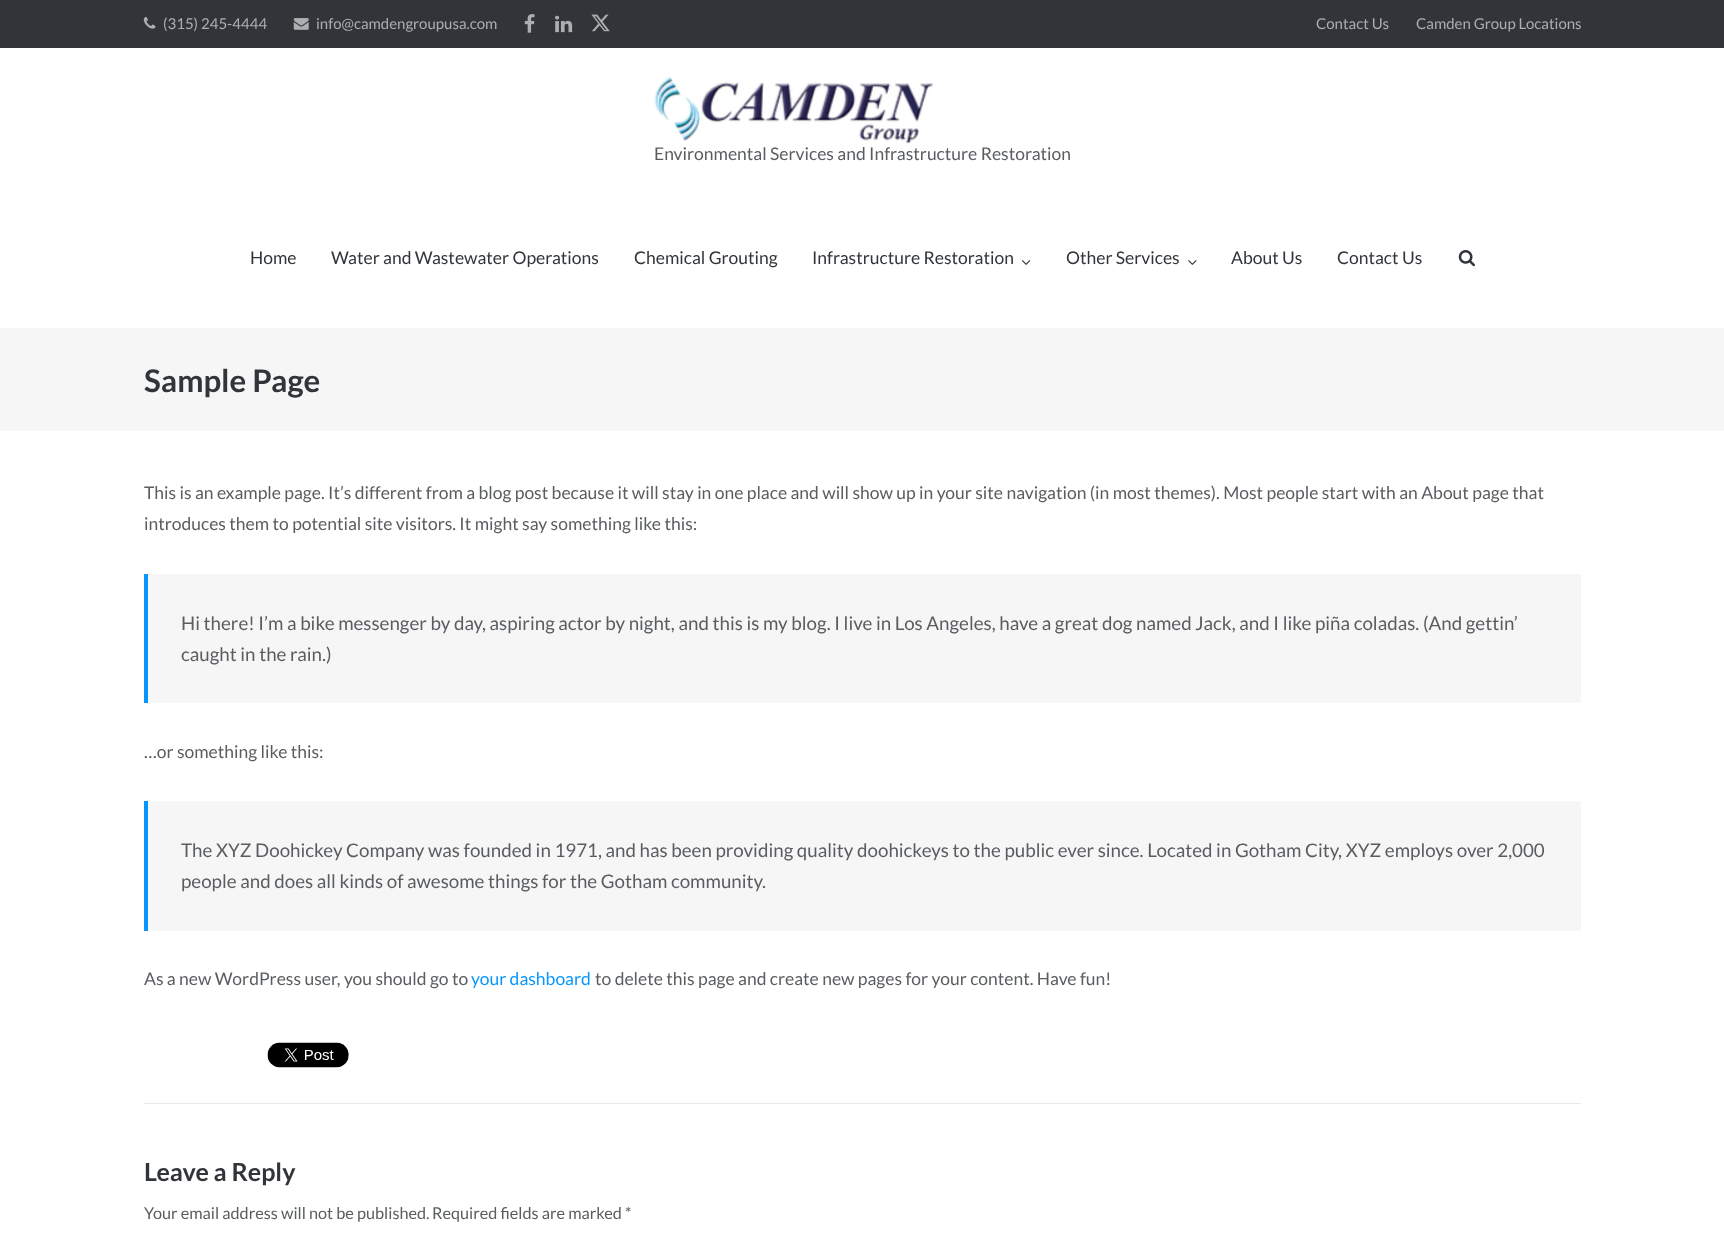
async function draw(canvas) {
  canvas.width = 1724;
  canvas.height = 1251;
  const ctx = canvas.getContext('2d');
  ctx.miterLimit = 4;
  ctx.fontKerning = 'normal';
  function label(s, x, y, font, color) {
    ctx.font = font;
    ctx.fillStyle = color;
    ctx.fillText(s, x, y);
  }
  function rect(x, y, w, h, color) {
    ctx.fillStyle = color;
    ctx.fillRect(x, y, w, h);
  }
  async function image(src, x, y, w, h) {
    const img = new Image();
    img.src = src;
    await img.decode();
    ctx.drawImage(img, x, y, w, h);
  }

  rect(0, 0, 1724, 1251, '#fff');
  rect(0, 0, 1724, 48, '#313539');
  await image('assets/img1.png', 143, 17, 13, 12);
  label('(315) 245-4444', 163, 29, '15px Lato', '#acaeaf');
  await image('assets/img2.png', 293, 18, 16, 12);
  label('info@camdengroupusa.com', 316, 29, '15px Lato', '#acaeaf');
  await image('assets/img3.png', 524, 14, 11, 19);
  await image('assets/img4.png', 555, 15, 18, 18);
  await image('assets/img5.png', 591, 14, 19, 18);
  label('Contact Us', 1316, 29, '15px Lato', '#acaeaf');
  label('Camden Group Locations', 1416, 29, '15px Lato', '#acaeaf');
  await image('assets/img6.png', 654, 76, 279, 68);
  label('Environmental Services and Infrastructure Restoration', 654, 160, '17.5px Lato', '#5a5d60');
  label('Home', 250, 264, '17.5px Lato', '#313539');
  label('Water and Wastewater Operations', 331, 264, '17.5px Lato', '#313539');
  label('Chemical Grouting', 634, 264, '17.5px Lato', '#313539');
  label('Infrastructure Restoration', 812, 264, '17.5px Lato', '#313539');
  await image('assets/img7.png', 1021, 260, 10, 5);
  label('Other Services', 1066, 264, '17.5px Lato', '#313539');
  await image('assets/img8.png', 1188, 260, 9, 5);
  label('About Us', 1231, 264, '17.5px Lato', '#313539');
  label('Contact Us', 1337, 264, '17.5px Lato', '#313539');
  await image('assets/img9.png', 1458, 250, 17, 17);
  rect(0, 328, 1724, 103, '#f6f6f7');
  label('Sample Page', 144, 392, 'bold 31.25px Lato', '#313539');
  label('This is an example page. It’s different from a blog post because it will stay in one place and will show up in your site navigation (in most themes). Most people start with an About page that', 144, 499, '17.5px Lato', '#5a5d60');
  label('introduces them to potential site visitors. It might say something like this:', 144, 530, '17.5px Lato', '#5a5d60');
  rect(148, 574, 1433, 129, '#f6f6f7');
  rect(144, 574, 4, 129, '#0896fe');
  label('Hi there! I’m a bike messenger by day, aspiring actor by night, and this is my blog. I live in Los Angeles, have a great dog named Jack, and I like piña coladas. (And gettin’', 181, 630, '18.75px Lato', '#5a5d60');
  label('caught in the rain.)', 181, 661, '18.75px Lato', '#5a5d60');
  label('…or something like this:', 144, 758, '17.5px Lato', '#5a5d60');
  rect(148, 801, 1433, 130, '#f6f6f7');
  rect(144, 801, 4, 130, '#0896fe');
  label('The XYZ Doohickey Company was founded in 1971, and has been providing quality doohickeys to the public ever since. Located in Gotham City, XYZ employs over 2,000', 181, 857, '18.75px Lato', '#5a5d60');
  label('people and does all kinds of awesome things for the Gotham community.', 181, 888, '18.75px Lato', '#5a5d60');
  label('As a new WordPress user, you should go to', 144, 985, '17.5px Lato', '#5a5d60');
  label('your dashboard', 471, 985, '17.5px Lato', '#0896fe');
  label('to delete this page and create new pages for your content. Have fun!', 595, 985, '17.5px Lato', '#5a5d60');
  await image('assets/img10.png', 267, 1042, 82, 26);
  rect(144, 1103, 1437, 1, '#eaeaeb');
  label('Leave a Reply', 144, 1181, 'bold 25px Lato', '#313539');
  label('Your email address will not be published.', 144, 1219, '16.25px Lato', '#5a5d60');
  label('Required fields are marked *', 432, 1219, '16.25px Lato', '#5a5d60');
}

draw(document.querySelector('canvas'));
